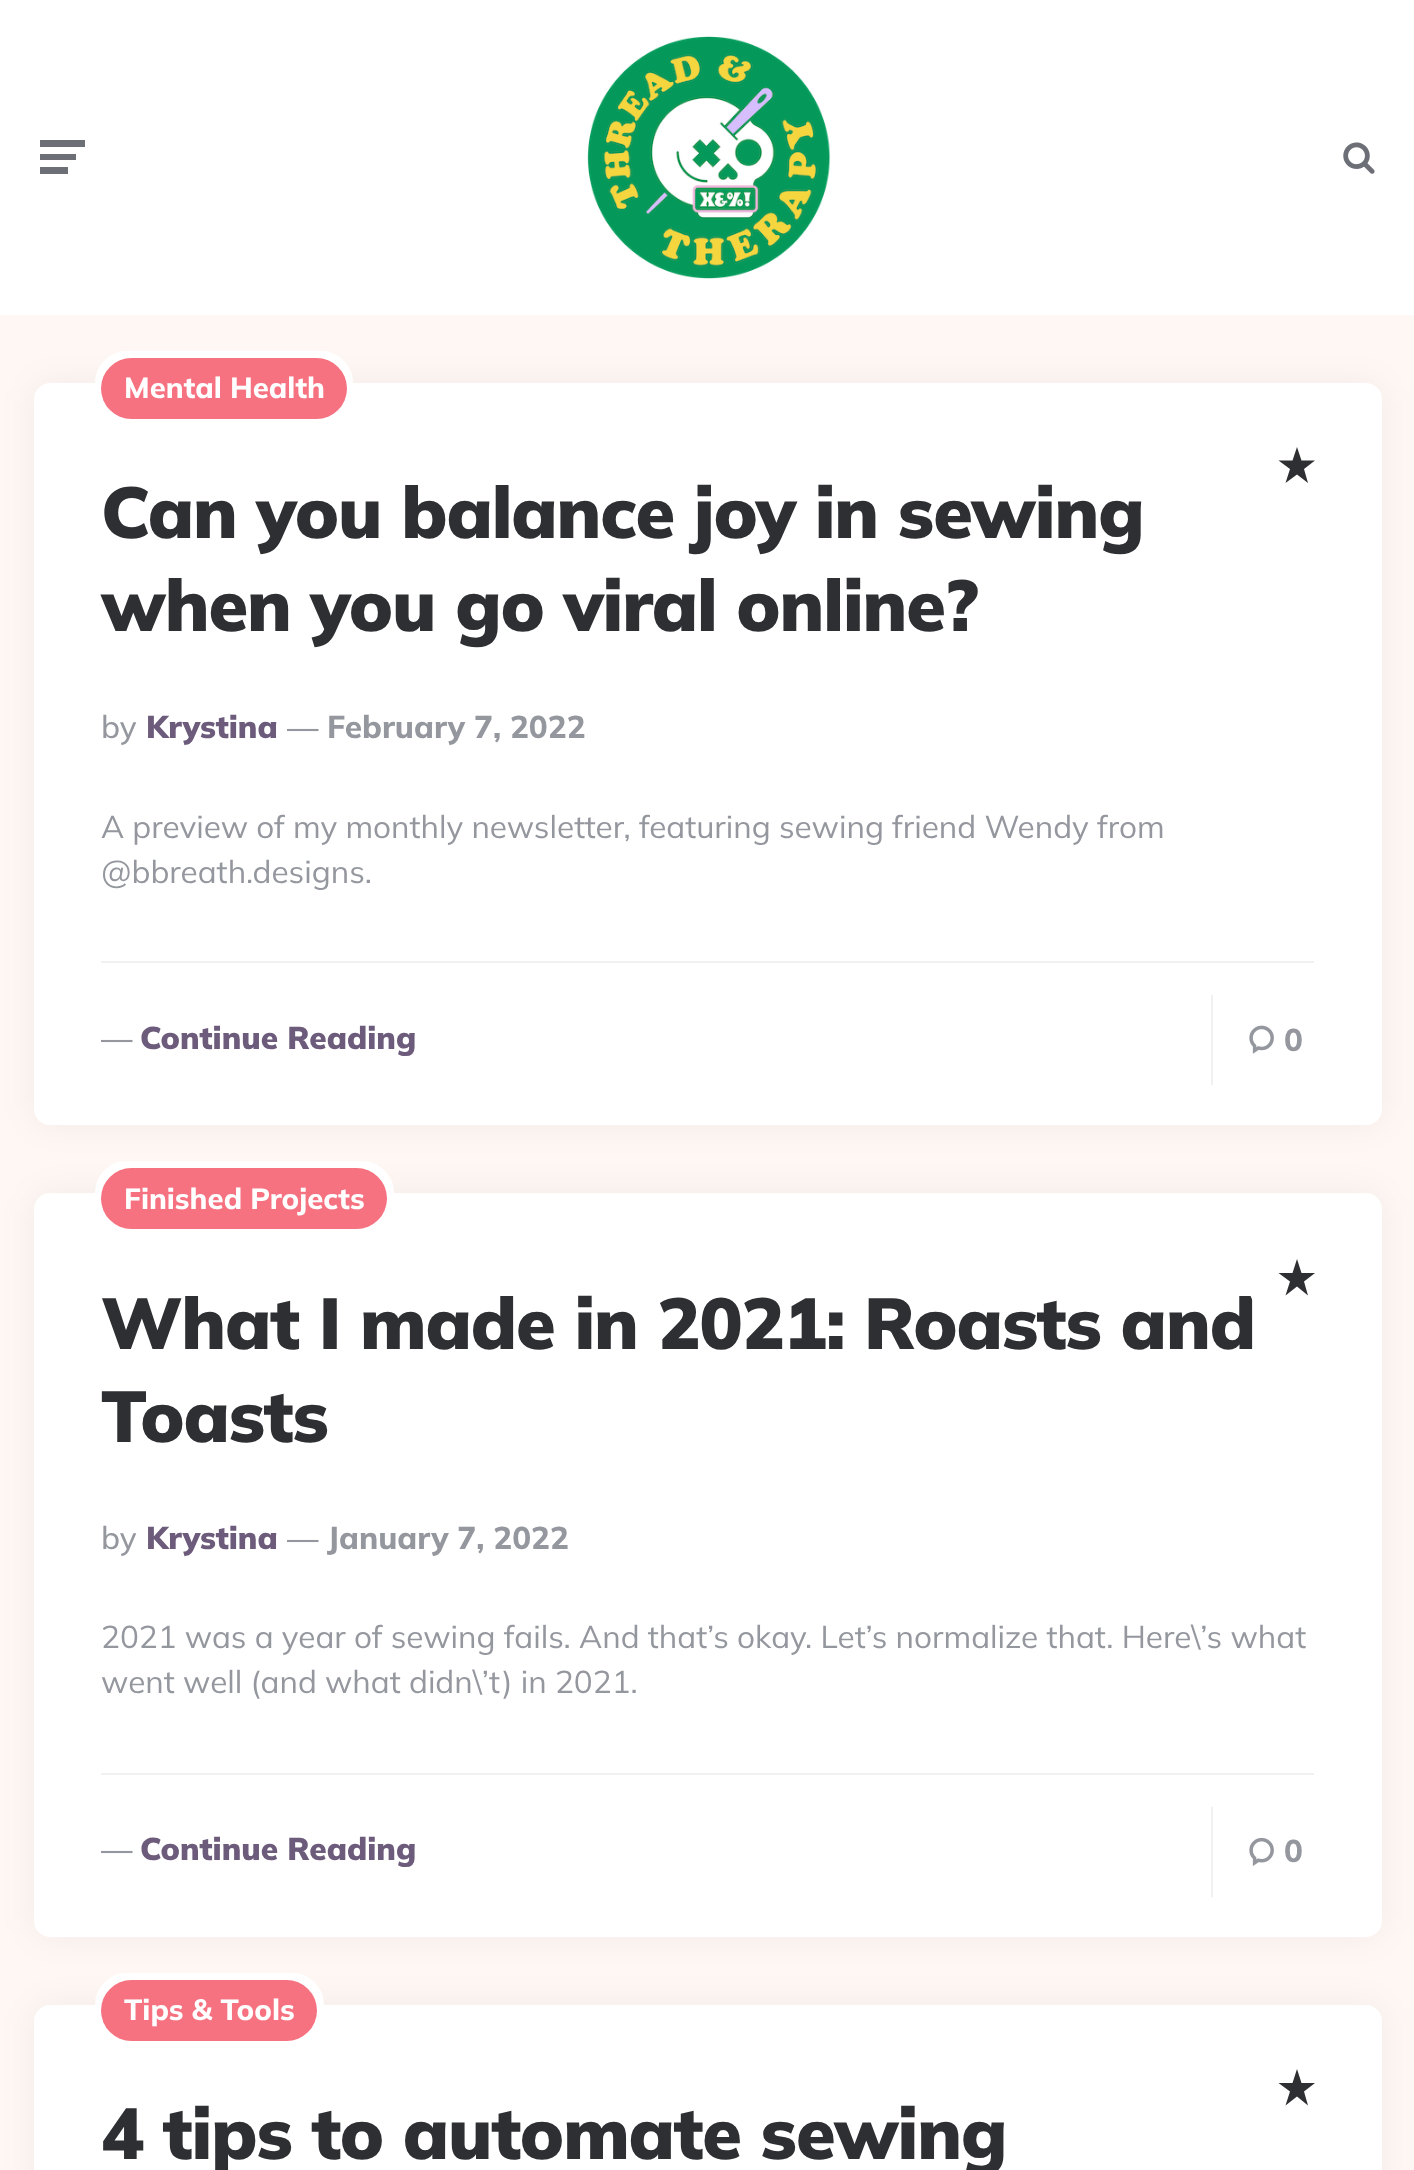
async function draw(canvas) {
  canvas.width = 1414;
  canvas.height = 2170;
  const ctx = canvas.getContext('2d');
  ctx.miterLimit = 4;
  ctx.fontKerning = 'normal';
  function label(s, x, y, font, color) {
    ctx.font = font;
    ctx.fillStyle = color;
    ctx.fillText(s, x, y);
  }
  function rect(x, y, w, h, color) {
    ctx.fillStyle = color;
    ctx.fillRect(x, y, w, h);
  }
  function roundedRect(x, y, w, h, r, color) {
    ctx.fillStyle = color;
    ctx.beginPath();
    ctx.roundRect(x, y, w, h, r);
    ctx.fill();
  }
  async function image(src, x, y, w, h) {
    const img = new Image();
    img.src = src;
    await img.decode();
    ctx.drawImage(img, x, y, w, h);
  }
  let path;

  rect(0, 0, 1414, 2170, '#fff7f3');
  rect(0, 0, 1414, 315, '#fff');
  ctx.fillStyle = '#6c6f76';
  path = new Path2D('M40 143V147H85V140H40ZM40 157V160H76V154H40ZM40 170V174H68V167H40Z');
  ctx.fill(path);
  await image('assets/img1.png', 587, 36, 244, 243);
  await image('assets/img2.png', 1343, 142, 32, 32);
  ctx.fillStyle = '#0000000d';
  ctx.filter = 'blur(17px)';
  ctx.beginPath();
  ctx.roundRect(34, 383, 1348, 742, 16);
  ctx.fill();
  ctx.filter = 'none';
  roundedRect(34, 383, 1348, 742, 16, '#fff');
  ctx.beginPath();
  ctx.roundRect(98.5, 354.5, 251, 67, 28.5);
  ctx.fill();
  ctx.strokeStyle = '#fff';
  ctx.lineWidth = 7;
  ctx.stroke();
  roundedRect(101, 358, 246, 61, 30.5, '#f67280');
  label('Mental Health', 124, 398, '800 29.25px Mulish', '#fff');
  ctx.letterSpacing = '-1.1px';
  label('Can you balance joy in sewing', 101, 538, '900 72px Mulish', '#2e2f33');
  label('when you go viral online?', 101, 631, '900 72px Mulish', '#2e2f33');
  ctx.letterSpacing = '0px';
  label('by', 101, 738, '500 31.5px Mulish', '#94979e');
  label('Krystina', 146, 738, '900 31.5px Mulish', '#6c5b7b');
  label('―', 287, 738, '31.5px Liberation Sans', '#94979e');
  label('February 7, 2022', 327, 738, '800 31.5px Mulish', '#94979e');
  ctx.fillStyle = '#2e2f33';
  path = new Path2D('M1304 469L1308 483L1297 474.5L1285.5 483L1290 469L1278.5 460.5H1292.5L1297 447L1301.5 460.5H1315Z');
  ctx.fill(path);
  label('A preview of my monthly newsletter, featuring sewing friend Wendy from', 101, 838, '31.5px Mulish', '#94979e');
  label('@bbreath.designs.', 101, 883, '31.5px Mulish', '#94979e');
  rect(101, 961, 1213, 2, '#f1f1f1');
  label('―', 101, 1049, '31.5px Liberation Sans', '#94979e');
  label('Continue Reading', 140, 1049, '900 31.5px Mulish', '#6c5b7b');
  rect(1211, 995, 2, 90, '#f1f1f1');
  await image('assets/img3.png', 1249, 1025, 25, 29);
  label('0', 1284, 1051, '800 31.5px Mulish', '#94979e');
  ctx.fillStyle = '#0000000d';
  ctx.filter = 'blur(17px)';
  ctx.beginPath();
  ctx.roundRect(34, 1193, 1348, 744, 16);
  ctx.fill();
  ctx.filter = 'none';
  roundedRect(34, 1193, 1348, 744, 16, '#fff');
  ctx.beginPath();
  ctx.roundRect(98.5, 1164.5, 292, 67, 28.5);
  ctx.fill();
  ctx.stroke();
  roundedRect(101, 1168, 286, 61, 30.5, '#f67280');
  label('Finished Projects', 124, 1209, '800 29.25px Mulish', '#fff');
  ctx.letterSpacing = '-1.1px';
  label('What I made in 2021: Roasts and', 101, 1349, '900 72px Mulish', '#2e2f33');
  label('Toasts', 101, 1442, '900 72px Mulish', '#2e2f33');
  ctx.letterSpacing = '0px';
  label('by', 101, 1549, '500 31.5px Mulish', '#94979e');
  label('Krystina', 146, 1549, '900 31.5px Mulish', '#6c5b7b');
  label('―', 287, 1549, '31.5px Liberation Sans', '#94979e');
  label('January 7, 2022', 327, 1549, '800 31.5px Mulish', '#94979e');
  roundedRect(1247, 1226, 101, 102, 50.5, '#fff');
  ctx.fillStyle = '#2e2f33';
  path = new Path2D('M1304 1281.5L1308 1295.5L1297 1286.5L1285.5 1295.5L1290 1281.5L1278.5 1273H1292.5L1297 1259L1301.5 1273H1315Z');
  ctx.fill(path);
  label('2021 was a year of sewing fails. And that’s okay. Let’s normalize that. Here\\’s what', 101, 1648, '31.5px Mulish', '#94979e');
  label('went well (and what didn\\’t) in 2021.', 101, 1693, '31.5px Mulish', '#94979e');
  rect(101, 1773, 1213, 2, '#f1f1f1');
  label('―', 101, 1860, '31.5px Liberation Sans', '#94979e');
  label('Continue Reading', 140, 1860, '900 31.5px Mulish', '#6c5b7b');
  rect(1211, 1807, 2, 90, '#f1f1f1');
  await image('assets/img4.png', 1249, 1837, 25, 29);
  label('0', 1284, 1862, '800 31.5px Mulish', '#94979e');
  ctx.fillStyle = '#0000000d';
  ctx.filter = 'blur(17px)';
  ctx.beginPath();
  ctx.roundRect(34, 2005, 1348, 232, 16);
  ctx.fill();
  ctx.filter = 'none';
  roundedRect(34, 2005, 1348, 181, 16, '#fff');
  ctx.beginPath();
  ctx.roundRect(98.5, 1976.5, 222, 68, 28.5);
  ctx.fill();
  ctx.stroke();
  roundedRect(101, 1980, 216, 61, 30.5, '#f67280');
  label('Tips & Tools', 124, 2020, '800 29.25px Mulish', '#fff');
  ctx.letterSpacing = '-1.1px';
  label('4 tips to automate sewing', 101, 2159, '900 72px Mulish', '#2e2f33');
  path = new Path2D('M1304 2091.5L1308 2105.5L1297 2096.5L1285.5 2105.5L1290 2091.5L1278.5 2083H1292.5L1297 2069L1301.5 2083H1315Z');
  ctx.fill(path);
}

draw(document.querySelector('canvas'));
